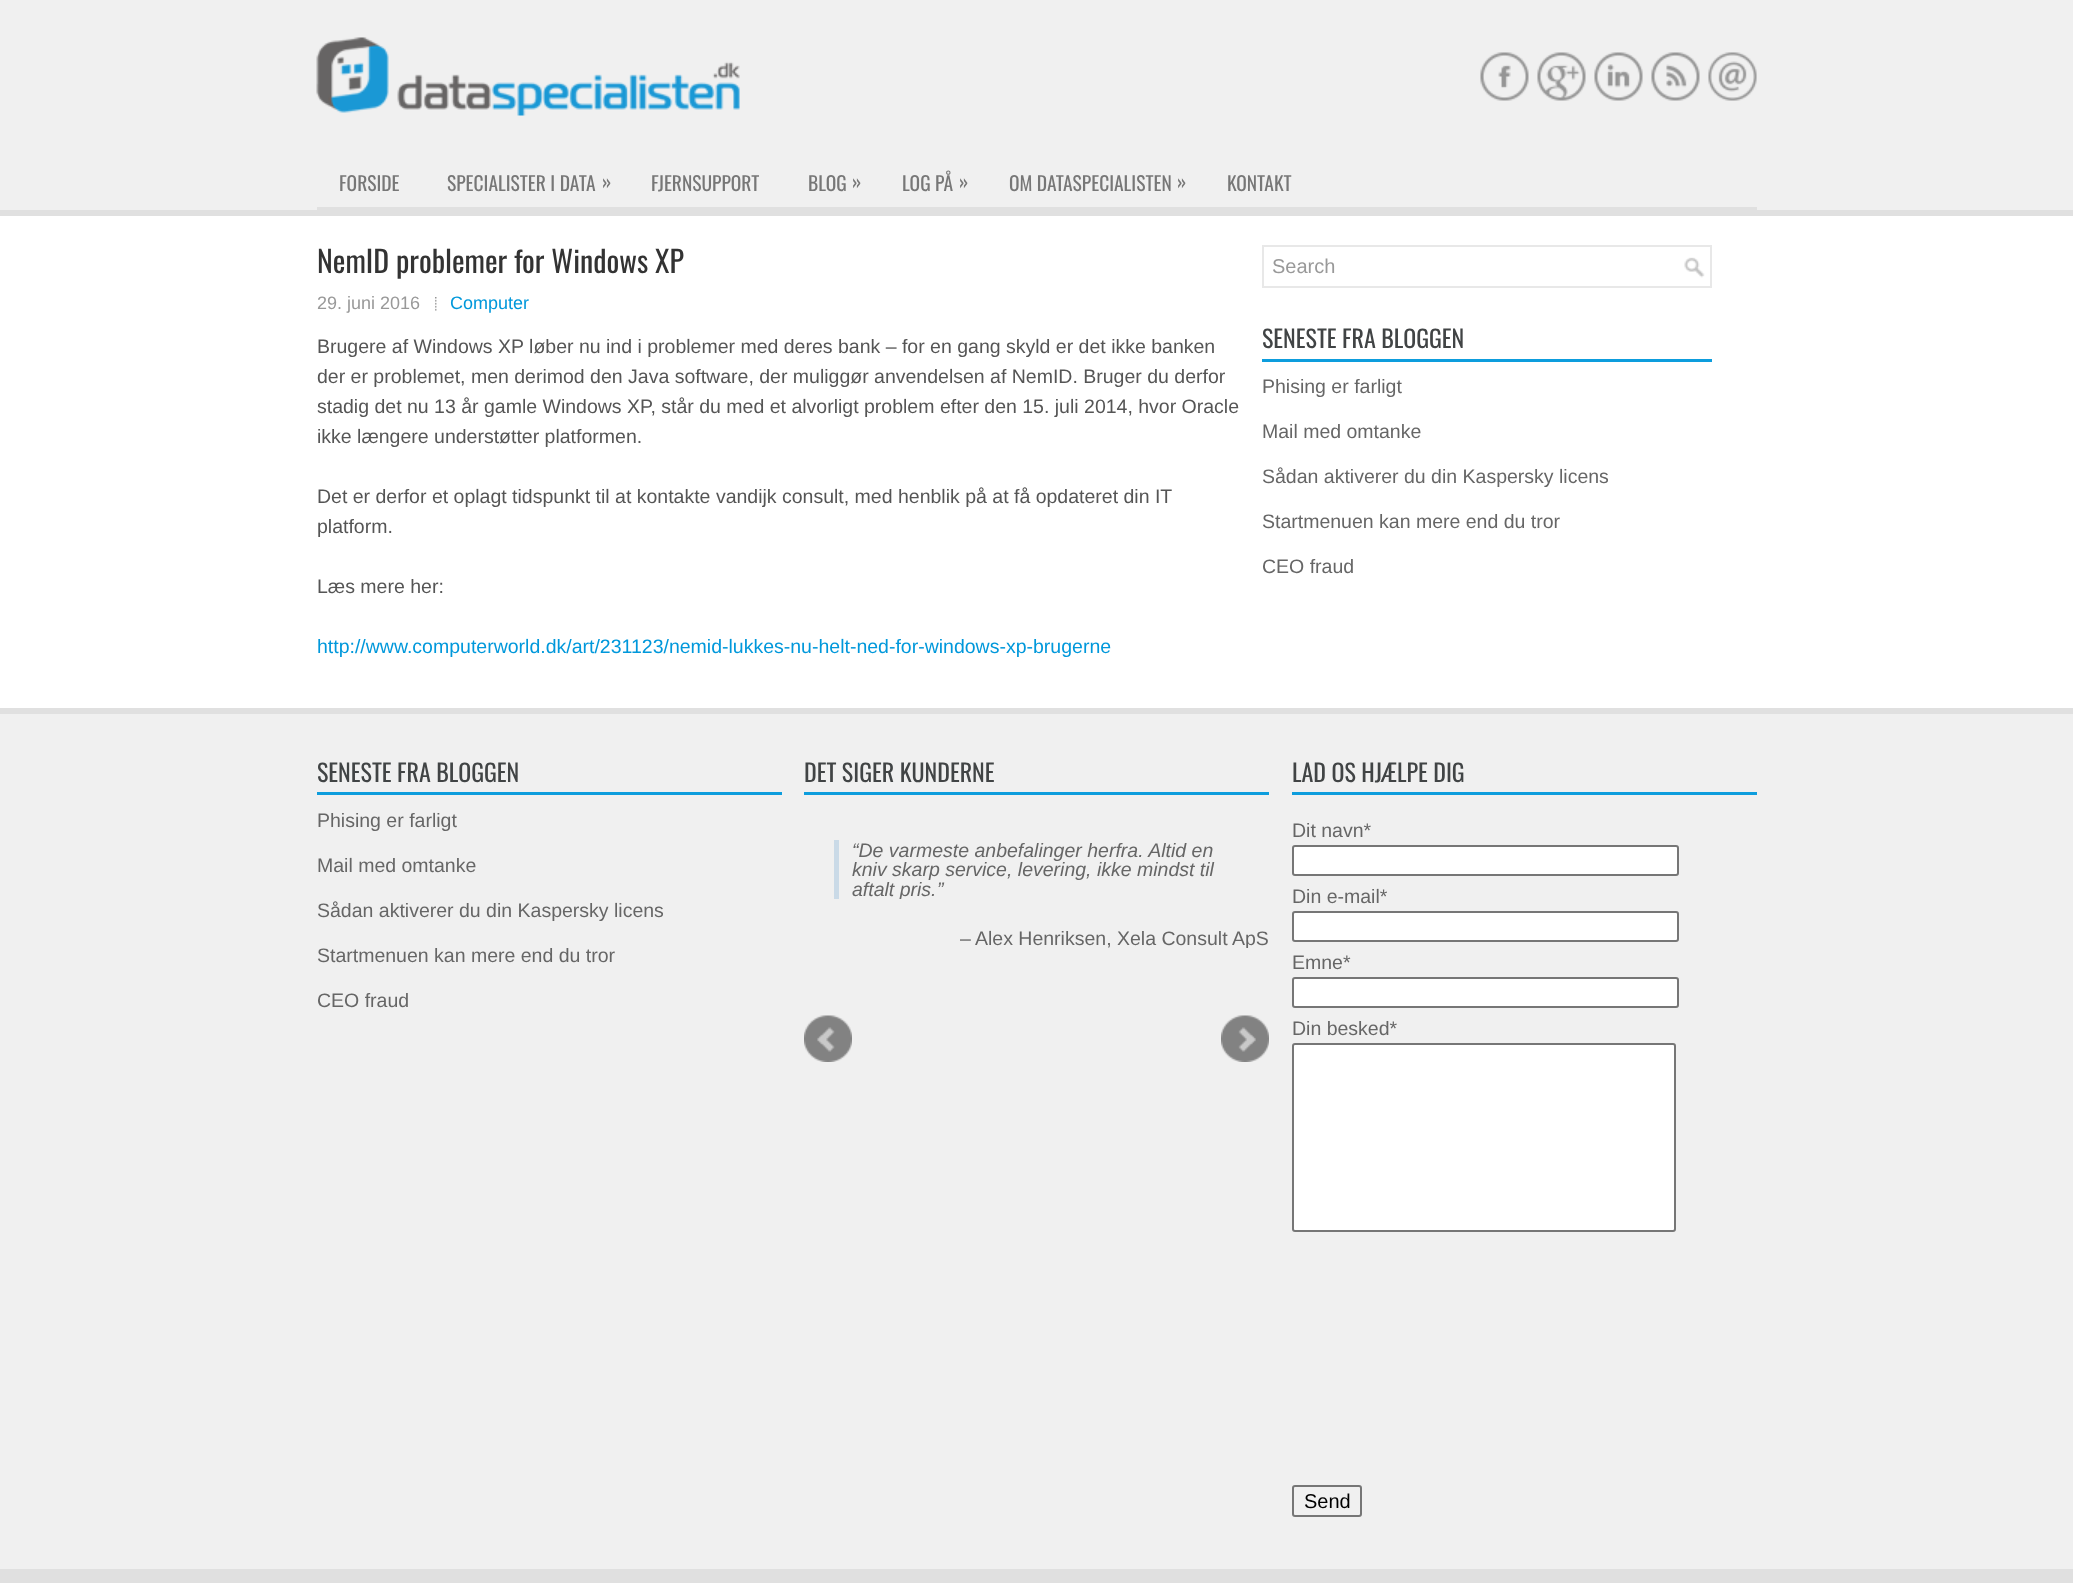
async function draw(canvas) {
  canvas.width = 2073;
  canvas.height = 1583;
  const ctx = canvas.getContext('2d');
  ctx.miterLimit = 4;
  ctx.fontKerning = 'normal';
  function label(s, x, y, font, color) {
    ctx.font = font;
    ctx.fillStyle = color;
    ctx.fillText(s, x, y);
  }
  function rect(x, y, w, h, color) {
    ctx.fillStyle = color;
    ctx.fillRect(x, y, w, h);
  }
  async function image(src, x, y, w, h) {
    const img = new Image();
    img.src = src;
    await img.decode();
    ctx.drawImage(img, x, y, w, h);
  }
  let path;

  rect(0, 0, 2073, 1583, '#fff');
  rect(0, 210, 2073, 6, '#e0e0e0');
  rect(0, 0, 2073, 210, '#f0f0f0');
  await image('assets/img1.png', 316, 37, 424, 79);
  await image('assets/img2.png', 1480, 52, 49, 49);
  await image('assets/img3.png', 1537, 52, 49, 49);
  await image('assets/img4.png', 1594, 52, 49, 49);
  await image('assets/img5.png', 1651, 52, 49, 49);
  await image('assets/img6.png', 1708, 52, 49, 49);
  ctx.fillStyle = '#e0e0e0';
  path = new Path2D('M317 207V213H1757V162H1756V207Z');
  ctx.fill(path);
  rect(1756, 162, 1, 45, '#f0f0f0');
  label('FORSIDE', 339, 191, '19.5px Oswald', '#777');
  label('SPECIALISTER I DATA', 447, 191, '19.5px Oswald', '#777');
  label('»', 602, 189, '19.5px Oswald', '#777');
  label('FJERNSUPPORT', 651, 191, '19.5px Oswald', '#777');
  label('BLOG', 808, 191, '19.5px Oswald', '#777');
  label('»', 852, 189, '19.5px Oswald', '#777');
  label('LOG PÅ', 902, 191, '19.5px Oswald', '#777');
  label('»', 959, 189, '19.5px Oswald', '#777');
  label('OM DATASPECIALISTEN', 1009, 191, '19.5px Oswald', '#777');
  label('»', 1177, 189, '19.5px Oswald', '#777');
  label('KONTAKT', 1227, 191, '19.5px Oswald', '#777');
  label('NemID problemer for Windows XP', 317, 273, '30px Oswald', '#333');
  label('29. juni 2016', 317, 309, '18px Liberation Sans', '#999');
  await image('assets/img7.png', 435, 297, 2, 14);
  label('Computer', 450, 309, '18px Liberation Sans', '#0098db');
  label('Brugere af Windows XP løber nu ind i problemer med deres bank – for en gang skyld er det ikke banken', 317, 353, '19.5px Liberation Sans', '#555');
  label('der er problemet, men derimod den Java software, der muliggør anvendelsen af NemID. Bruger du derfor', 317, 383, '19.5px Liberation Sans', '#555');
  label('stadig det nu 13 år gamle Windows XP, står du med et alvorligt problem efter den 15. juli 2014, hvor Oracle', 317, 413, '19.5px Liberation Sans', '#555');
  label('ikke længere understøtter platformen.', 317, 443, '19.5px Liberation Sans', '#555');
  label('Det er derfor et oplagt tidspunkt til at kontakte vandijk consult, med henblik på at få opdateret din IT', 317, 503, '19.5px Liberation Sans', '#555');
  label('platform.', 317, 533, '19.5px Liberation Sans', '#555');
  label('Læs mere her:', 317, 593, '19.5px Liberation Sans', '#555');
  label('http://www.computerworld.dk/art/231123/nemid-lukkes-nu-helt-ned-for-windows-xp-brugerne', 317, 653, '19.5px Liberation Sans', '#0098db');
  await image('assets/img8.png', 1684, 257, 21, 21);
  ctx.strokeStyle = '#e8e8e8';
  ctx.lineWidth = 2;
  ctx.strokeRect(1263, 246, 448, 41);
  label('Search', 1272, 273, '20px Liberation Sans', '#999');
  rect(1262, 359, 450, 3, '#0d9ddd');
  label('SENESTE FRA BLOGGEN', 1262, 348, '24px Oswald', '#414445');
  label('Phising er farligt', 1262, 393, '19.5px Liberation Sans', '#666');
  label('Mail med omtanke', 1262, 438, '19.5px Liberation Sans', '#666');
  label('Sådan aktiverer du din Kaspersky licens', 1262, 483, '19.5px Liberation Sans', '#666');
  label('Startmenuen kan mere end du tror', 1262, 528, '19.5px Liberation Sans', '#666');
  label('CEO fraud', 1262, 573, '19.5px Liberation Sans', '#666');
  rect(0, 708, 2073, 6, '#e0e0e0');
  rect(0, 714, 2073, 855, '#f0f0f0');
  rect(317, 792, 465, 3, '#0d9ddd');
  label('SENESTE FRA BLOGGEN', 317, 782, '24px Oswald', '#414445');
  label('Phising er farligt', 317, 827, '19.5px Liberation Sans', '#666');
  label('Mail med omtanke', 317, 872, '19.5px Liberation Sans', '#666');
  label('Sådan aktiverer du din Kaspersky licens', 317, 917, '19.5px Liberation Sans', '#666');
  label('Startmenuen kan mere end du tror', 317, 962, '19.5px Liberation Sans', '#666');
  label('CEO fraud', 317, 1007, '19.5px Liberation Sans', '#666');
  rect(804, 792, 465, 3, '#0d9ddd');
  label('DET SIGER KUNDERNE', 804, 782, '24px Oswald', '#414445');
  rect(834, 840, 5, 59, '#cadae7');
  label('“De varmeste anbefalinger herfra. Altid en', 852, 857, 'italic 19.5px Liberation Sans', '#666');
  label('kniv skarp service, levering, ikke mindst til', 852, 876, 'italic 19.5px Liberation Sans', '#666');
  ctx.save();
  ctx.beginPath();
  ctx.rect(839, 840, 400, 59);
  ctx.clip();
  label('aftalt pris.', 852, 896, 'italic 19.5px Liberation Sans', '#666');
  ctx.restore();
  label('”', 937, 896, 'italic 19.5px Liberation Sans', '#666');
  label('–', 960, 945, '19.5px Liberation Sans', '#666');
  label('Alex Henriksen,', 975, 945, '19.5px Liberation Sans', '#666');
  ctx.save();
  ctx.beginPath();
  ctx.rect(804, 810, 465, 138);
  ctx.clip();
  label('Xela Consult ApS', 1117, 945, '19.5px Liberation Sans', '#666');
  ctx.restore();
  await image('assets/img9.png', 804, 1015, 48, 47);
  await image('assets/img10.png', 1221, 1015, 48, 47);
  rect(1292, 792, 465, 3, '#0d9ddd');
  label('LAD OS HJÆLPE DIG', 1292, 782, '24px Oswald', '#414445');
  label('Dit navn*', 1292, 837, '19.5px Liberation Sans', '#666');
  ctx.fillStyle = '#fff';
  ctx.beginPath();
  ctx.roundRect(1293, 846, 385, 29, 2);
  ctx.fill();
  ctx.strokeStyle = '#767676';
  ctx.stroke();
  label('Din e-mail*', 1292, 903, '19.5px Liberation Sans', '#666');
  ctx.fillStyle = '#fff';
  ctx.beginPath();
  ctx.roundRect(1293, 912, 385, 29, 2);
  ctx.fill();
  ctx.stroke();
  label('Emne*', 1292, 969, '19.5px Liberation Sans', '#666');
  ctx.fillStyle = '#fff';
  ctx.beginPath();
  ctx.roundRect(1293, 978, 385, 29, 2);
  ctx.fill();
  ctx.stroke();
  label('Din besked*', 1292, 1035, '19.5px Liberation Sans', '#666');
  ctx.fillStyle = '#fff';
  ctx.beginPath();
  ctx.roundRect(1293, 1044, 382, 187, 2);
  ctx.fill();
  ctx.stroke();
  ctx.beginPath();
  ctx.roundRect(1293, 1486, 68, 30, 2);
  ctx.stroke();
  label('Send', 1304, 1508, '20px Liberation Sans', '#000');
  rect(0, 1569, 2073, 14, '#e0e0e0');
}

draw(document.querySelector('canvas'));
